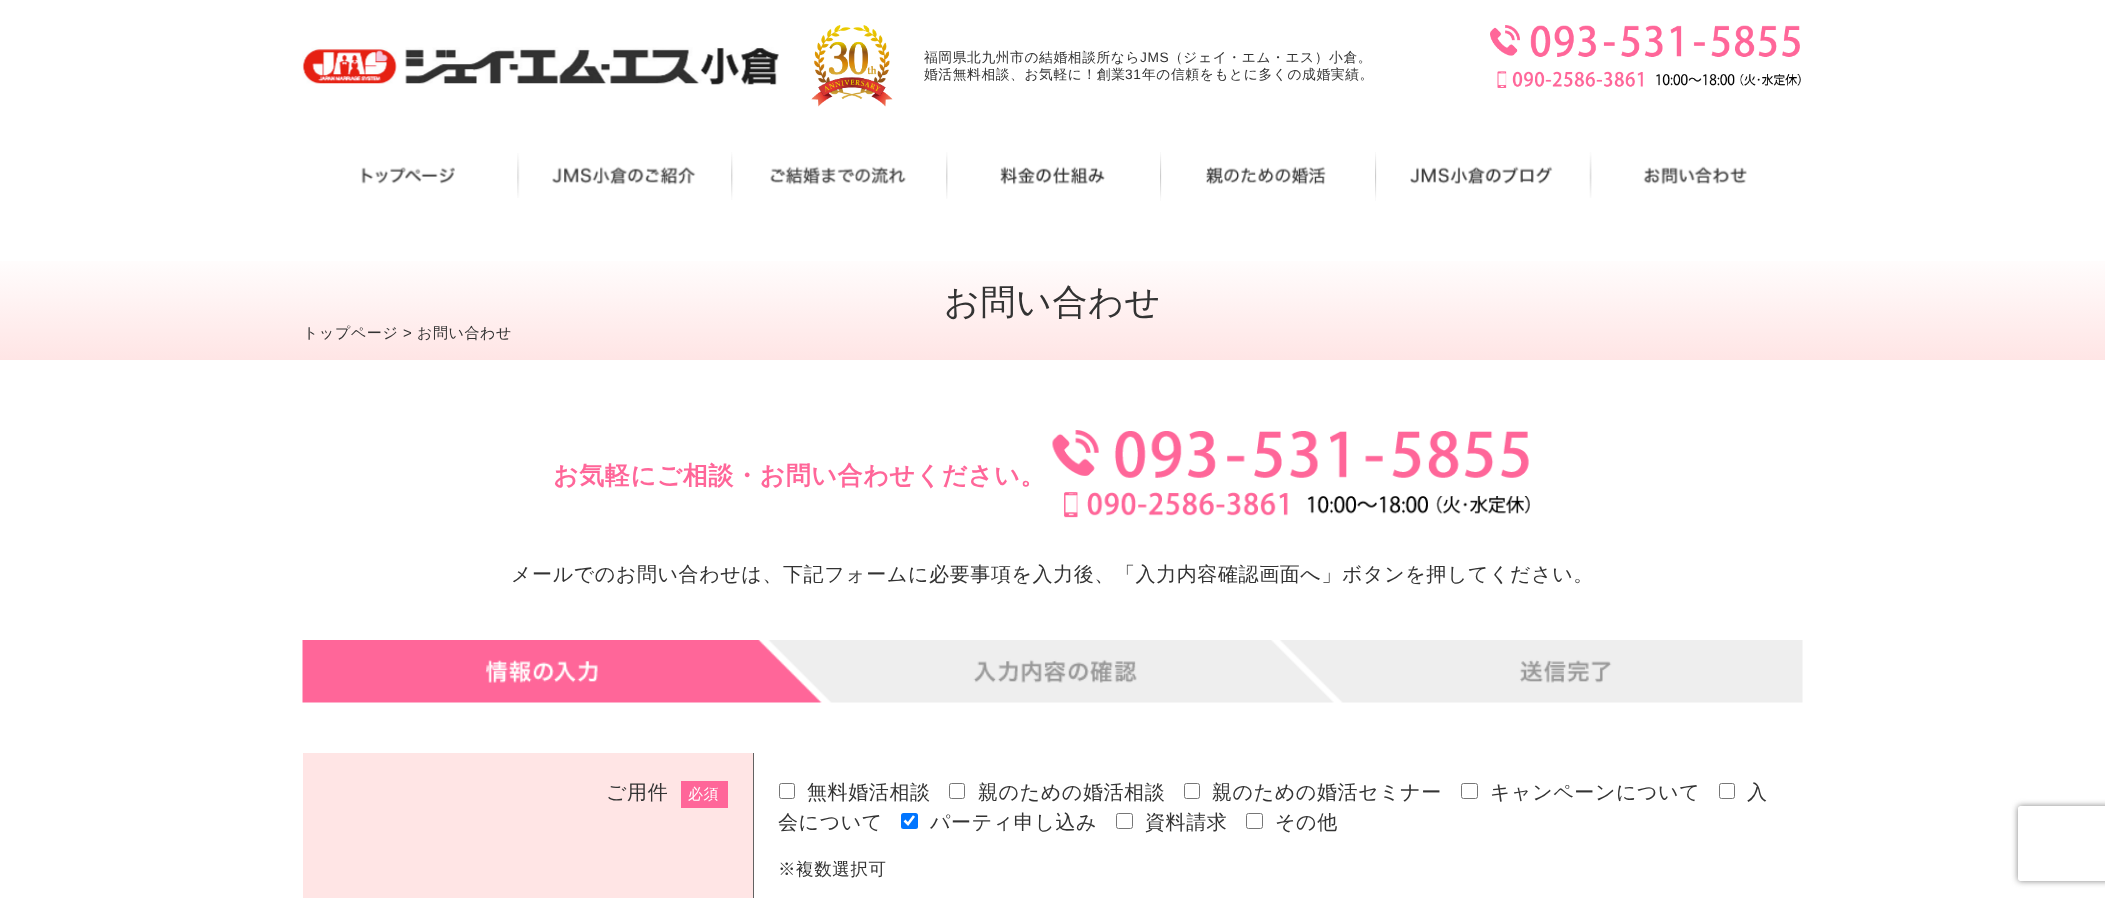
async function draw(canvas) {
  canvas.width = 2105;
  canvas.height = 898;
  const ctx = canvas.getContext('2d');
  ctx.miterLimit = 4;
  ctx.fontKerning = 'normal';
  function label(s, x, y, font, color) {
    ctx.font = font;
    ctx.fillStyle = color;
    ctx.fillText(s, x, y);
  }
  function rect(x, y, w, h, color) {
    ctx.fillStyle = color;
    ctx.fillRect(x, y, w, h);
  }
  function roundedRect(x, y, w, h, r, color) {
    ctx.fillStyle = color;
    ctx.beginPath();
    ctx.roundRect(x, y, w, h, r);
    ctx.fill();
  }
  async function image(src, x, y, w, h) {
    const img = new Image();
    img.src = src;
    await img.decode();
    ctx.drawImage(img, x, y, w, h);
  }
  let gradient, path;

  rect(0, 0, 2105, 898, '#fff');
  await image('assets/img1.png', 302, 47, 477, 38);
  await image('assets/img2.png', 811, 25, 82, 82);
  ctx.letterSpacing = '0.6px';
  label('福岡県北九州市の結婚相談所なら', 924, 62, '500 13.75px WenQuanYi Zen Hei', '#333');
  label('JMS', 1140, 62, '13.75px Liberation Sans', '#333');
  label('（ジェイ・エム・エス）小倉。', 1169, 62, '500 13.75px WenQuanYi Zen Hei', '#333');
  label('婚活無料相談、お気軽に！創業', 924, 79, '500 13.75px WenQuanYi Zen Hei', '#333');
  label('31', 1125, 79, '13.75px Liberation Sans', '#333');
  label('年の信頼をもとに多くの成婚実績。', 1142, 79, '500 13.75px WenQuanYi Zen Hei', '#333');
  await image('assets/img3.png', 1490, 25, 310, 32);
  await image('assets/img4.png', 1497, 71, 304, 17);
  await image('assets/img5.png', 361, 167, 94, 17);
  await image('assets/img6.png', 517, 153, 179, 45);
  await image('assets/img7.png', 731, 152, 175, 48);
  await image('assets/img8.png', 946, 152, 159, 47);
  await image('assets/img9.png', 1160, 152, 166, 49);
  await image('assets/img10.png', 1375, 152, 178, 49);
  await image('assets/img11.png', 1589, 152, 158, 46);
  gradient = ctx.createLinearGradient(1053, 250, 1053, 360);
  gradient.addColorStop(0, '#fff');
  gradient.addColorStop(1, '#ffe5e5');
  ctx.fillStyle = gradient;
  ctx.fillRect(0, 261, 2105, 99);
  label('お問い合わせ', 944, 314, '500 35px WenQuanYi Zen Hei', '#333');
  label('トップページ', 303, 338, '500 15px WenQuanYi Zen Hei', '#333');
  label('>', 403, 338, '15px Liberation Sans', '#333');
  label('お問い合わせ', 417, 338, '500 15px WenQuanYi Zen Hei', '#333');
  label('お気軽にご相談・お問い合わせください。', 553, 484, 'bold 25px WenQuanYi Zen Hei', '#f69');
  await image('assets/img12.png', 1052, 430, 477, 48);
  await image('assets/img13.png', 1064, 492, 466, 26);
  label('メールでのお問い合わせは、下記フォームに必要事項を入力後、「入力内容確認画面へ」ボタンを押してください。', 511, 581, '500 20px WenQuanYi Zen Hei', '#333');
  await image('assets/img14.png', 302, 640, 1501, 63);
  rect(303, 753, 450, 145, '#ffe5e5');
  rect(753, 753, 1, 145, '#626262');
  label('ご用件', 606, 799, '500 20px WenQuanYi Zen Hei', '#333');
  rect(681, 781, 47, 27, '#f69');
  label('必須', 688, 799, '500 15px WenQuanYi Zen Hei', '#fff');
  ctx.beginPath();
  ctx.roundRect(1719.5, 783.5, 15, 15, 2);
  ctx.strokeStyle = '#767676';
  ctx.stroke();
  label('入', 1747, 799, '500 20px WenQuanYi Zen Hei', '#333');
  label('会について', 778, 829, '500 20px WenQuanYi Zen Hei', '#333');
  ctx.beginPath();
  ctx.roundRect(779.5, 783.5, 15, 15, 2);
  ctx.stroke();
  label('無料婚活相談', 807, 799, '500 20px WenQuanYi Zen Hei', '#333');
  ctx.beginPath();
  ctx.roundRect(949.5, 783.5, 15, 15, 2);
  ctx.stroke();
  label('親のための婚活相談', 978, 799, '500 20px WenQuanYi Zen Hei', '#333');
  ctx.beginPath();
  ctx.roundRect(1184.5, 783.5, 15, 15, 2);
  ctx.stroke();
  label('親のための婚活セミナー', 1212, 799, '500 20px WenQuanYi Zen Hei', '#333');
  ctx.beginPath();
  ctx.roundRect(1461.5, 783.5, 16, 15, 2);
  ctx.stroke();
  label('キャンペーンについて', 1490, 799, '500 20px WenQuanYi Zen Hei', '#333');
  roundedRect(901, 813, 17, 16, 2.5, '#0075ff');
  path = new Path2D('M904.5 820.5L908 824L914 816');
  ctx.strokeStyle = '#fff';
  ctx.lineWidth = 2.6;
  ctx.stroke(path);
  label('パーティ申し込み', 930, 829, '500 20px WenQuanYi Zen Hei', '#333');
  ctx.beginPath();
  ctx.roundRect(1116.5, 813.5, 16, 15, 2);
  ctx.strokeStyle = '#767676';
  ctx.lineWidth = 1;
  ctx.stroke();
  label('資料請求', 1145, 829, '500 20px WenQuanYi Zen Hei', '#333');
  ctx.beginPath();
  ctx.roundRect(1246.5, 813.5, 16, 15, 2);
  ctx.stroke();
  label('その他', 1275, 829, '500 20px WenQuanYi Zen Hei', '#333');
  label('※複数選択可', 778, 875, '500 17.5px WenQuanYi Zen Hei', '#333');
  ctx.save();
  path = new Path2D('M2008 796H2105V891H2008ZM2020.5 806H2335.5C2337 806 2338 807 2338 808.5V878.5C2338 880 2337 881 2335.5 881H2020.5C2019 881 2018 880 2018 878.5V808.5C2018 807 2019 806 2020.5 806Z');
  ctx.clip(path, 'evenodd');
  ctx.fillStyle = '#808080';
  ctx.filter = 'blur(3px)';
  ctx.beginPath();
  ctx.roundRect(2018, 806, 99, 75, 2.5);
  ctx.fill();
  ctx.filter = 'none';
  ctx.restore();
}

draw(document.querySelector('canvas'));
